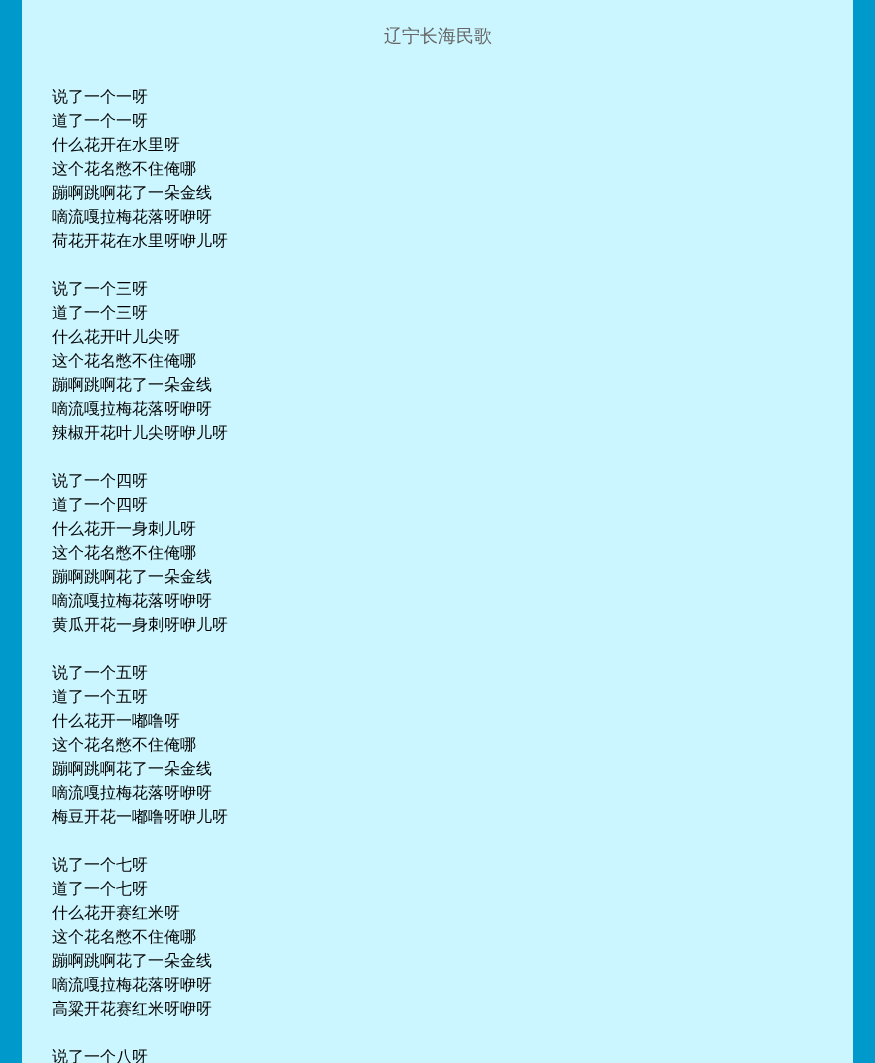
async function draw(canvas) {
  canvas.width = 875;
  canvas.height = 1063;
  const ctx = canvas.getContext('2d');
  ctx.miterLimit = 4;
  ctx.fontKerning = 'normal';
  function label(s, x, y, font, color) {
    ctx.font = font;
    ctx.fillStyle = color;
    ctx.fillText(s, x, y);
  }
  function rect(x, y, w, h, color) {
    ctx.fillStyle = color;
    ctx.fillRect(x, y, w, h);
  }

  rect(0, 0, 875, 1063, '#09c');
  rect(22, 0, 831, 1063, '#ccf6ff');
  label('辽宁长海民歌', 384, 42, '500 18px WenQuanYi Zen Hei', '#666');
  label('说了一个一呀', 52, 102, '500 16px WenQuanYi Zen Hei', '#000');
  label('道了一个一呀', 52, 126, '500 16px WenQuanYi Zen Hei', '#000');
  label('什么花开在水里呀', 52, 150, '500 16px WenQuanYi Zen Hei', '#000');
  label('这个花名憋不住俺哪', 52, 174, '500 16px WenQuanYi Zen Hei', '#000');
  label('蹦啊跳啊花了一朵金线', 52, 198, '500 16px WenQuanYi Zen Hei', '#000');
  label('嘀流嘎拉梅花落呀咿呀', 52, 222, '500 16px WenQuanYi Zen Hei', '#000');
  label('荷花开花在水里呀咿儿呀', 52, 246, '500 16px WenQuanYi Zen Hei', '#000');
  label('说了一个三呀', 52, 294, '500 16px WenQuanYi Zen Hei', '#000');
  label('道了一个三呀', 52, 318, '500 16px WenQuanYi Zen Hei', '#000');
  label('什么花开叶儿尖呀', 52, 342, '500 16px WenQuanYi Zen Hei', '#000');
  label('这个花名憋不住俺哪', 52, 366, '500 16px WenQuanYi Zen Hei', '#000');
  label('蹦啊跳啊花了一朵金线', 52, 390, '500 16px WenQuanYi Zen Hei', '#000');
  label('嘀流嘎拉梅花落呀咿呀', 52, 414, '500 16px WenQuanYi Zen Hei', '#000');
  label('辣椒开花叶儿尖呀咿儿呀', 52, 438, '500 16px WenQuanYi Zen Hei', '#000');
  label('说了一个四呀', 52, 486, '500 16px WenQuanYi Zen Hei', '#000');
  label('道了一个四呀', 52, 510, '500 16px WenQuanYi Zen Hei', '#000');
  label('什么花开一身刺儿呀', 52, 534, '500 16px WenQuanYi Zen Hei', '#000');
  label('这个花名憋不住俺哪', 52, 558, '500 16px WenQuanYi Zen Hei', '#000');
  label('蹦啊跳啊花了一朵金线', 52, 582, '500 16px WenQuanYi Zen Hei', '#000');
  label('嘀流嘎拉梅花落呀咿呀', 52, 606, '500 16px WenQuanYi Zen Hei', '#000');
  label('黄瓜开花一身刺呀咿儿呀', 52, 630, '500 16px WenQuanYi Zen Hei', '#000');
  label('说了一个五呀', 52, 678, '500 16px WenQuanYi Zen Hei', '#000');
  label('道了一个五呀', 52, 702, '500 16px WenQuanYi Zen Hei', '#000');
  label('什么花开一嘟噜呀', 52, 726, '500 16px WenQuanYi Zen Hei', '#000');
  label('这个花名憋不住俺哪', 52, 750, '500 16px WenQuanYi Zen Hei', '#000');
  label('蹦啊跳啊花了一朵金线', 52, 774, '500 16px WenQuanYi Zen Hei', '#000');
  label('嘀流嘎拉梅花落呀咿呀', 52, 798, '500 16px WenQuanYi Zen Hei', '#000');
  label('梅豆开花一嘟噜呀咿儿呀', 52, 822, '500 16px WenQuanYi Zen Hei', '#000');
  label('说了一个七呀', 52, 870, '500 16px WenQuanYi Zen Hei', '#000');
  label('道了一个七呀', 52, 894, '500 16px WenQuanYi Zen Hei', '#000');
  label('什么花开赛红米呀', 52, 918, '500 16px WenQuanYi Zen Hei', '#000');
  label('这个花名憋不住俺哪', 52, 942, '500 16px WenQuanYi Zen Hei', '#000');
  label('蹦啊跳啊花了一朵金线', 52, 966, '500 16px WenQuanYi Zen Hei', '#000');
  label('嘀流嘎拉梅花落呀咿呀', 52, 990, '500 16px WenQuanYi Zen Hei', '#000');
  label('高粱开花赛红米呀咿呀', 52, 1014, '500 16px WenQuanYi Zen Hei', '#000');
  label('说了一个八呀', 52, 1062, '500 16px WenQuanYi Zen Hei', '#000');
}

draw(document.querySelector('canvas'));
